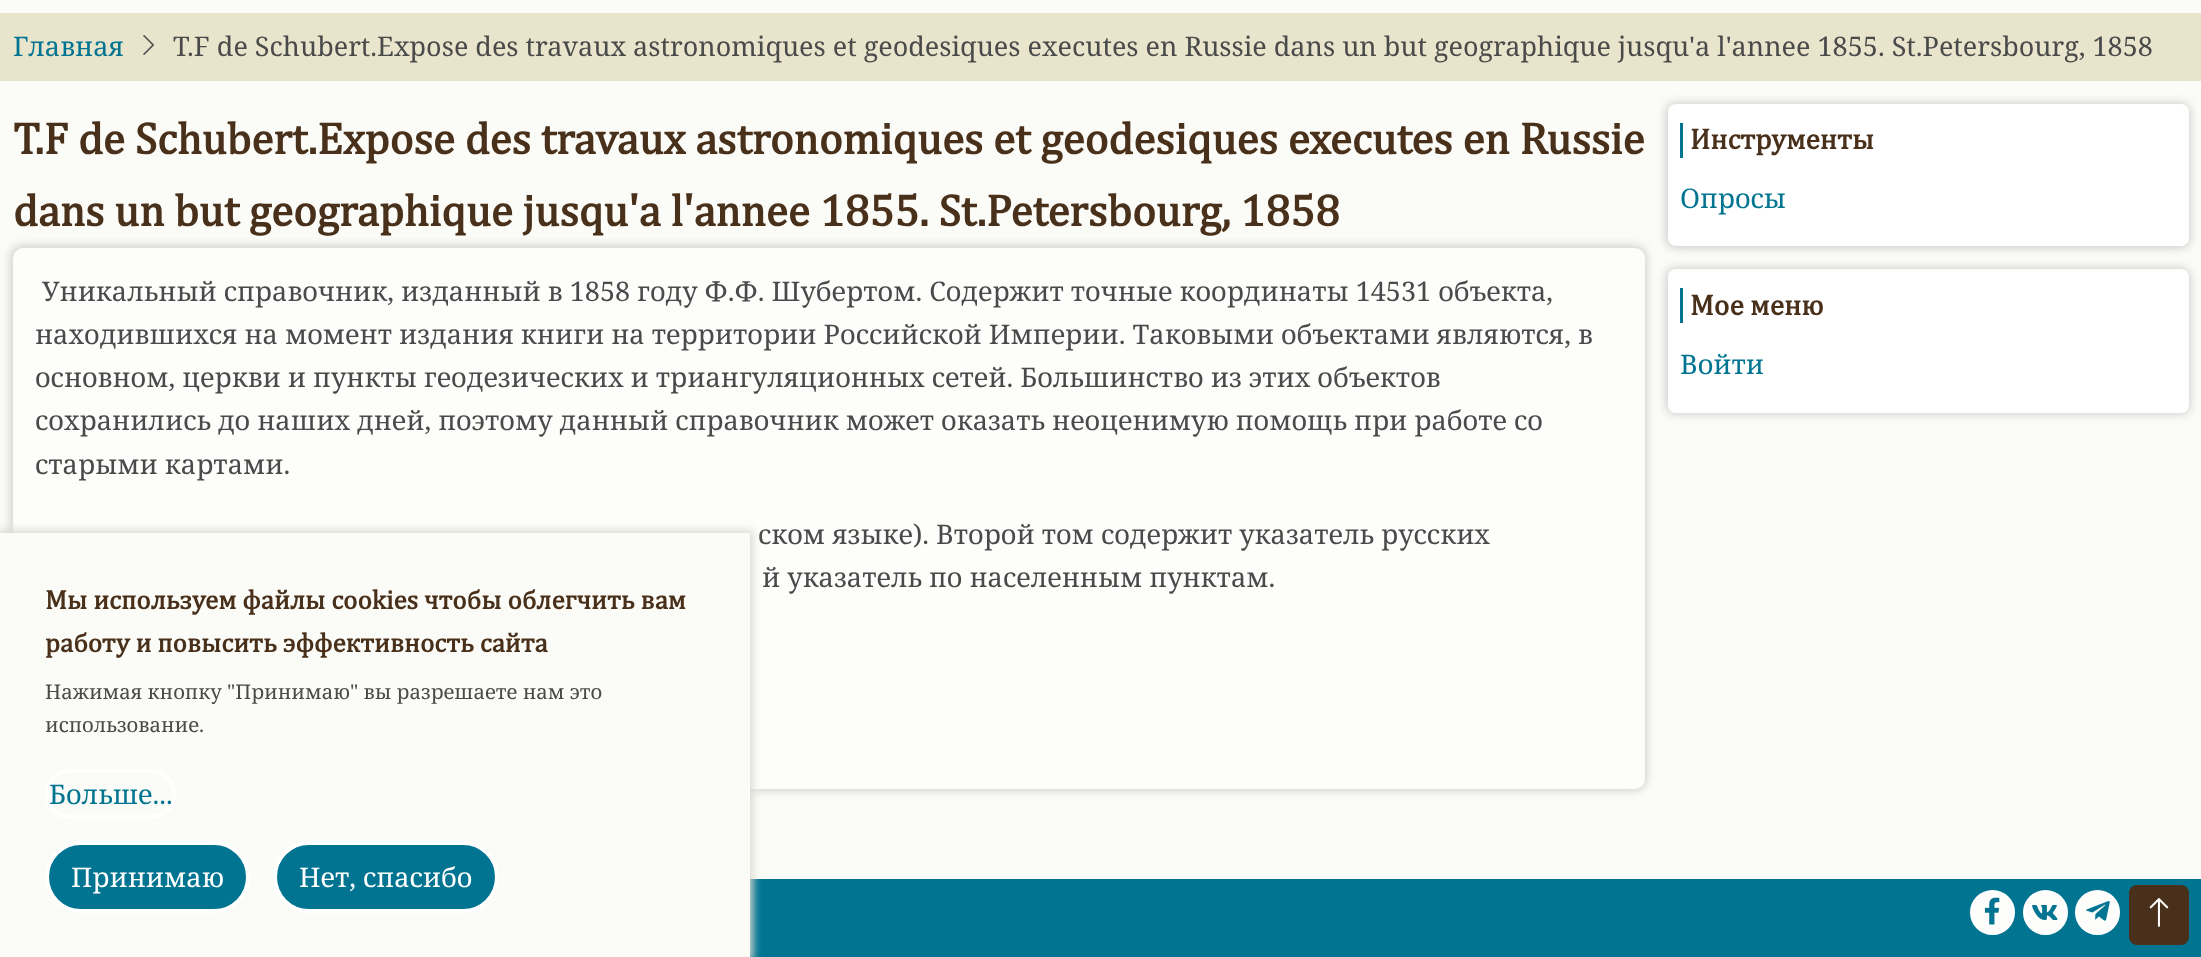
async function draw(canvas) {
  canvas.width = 2201;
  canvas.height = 957;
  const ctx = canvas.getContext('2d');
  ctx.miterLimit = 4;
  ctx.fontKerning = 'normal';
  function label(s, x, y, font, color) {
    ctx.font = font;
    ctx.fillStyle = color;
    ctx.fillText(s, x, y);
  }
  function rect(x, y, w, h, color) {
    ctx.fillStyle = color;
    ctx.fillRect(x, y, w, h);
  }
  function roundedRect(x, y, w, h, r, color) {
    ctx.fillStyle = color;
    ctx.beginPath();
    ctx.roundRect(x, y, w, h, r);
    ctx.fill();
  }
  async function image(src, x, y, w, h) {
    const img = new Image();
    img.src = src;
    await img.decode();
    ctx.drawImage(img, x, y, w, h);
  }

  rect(0, 0, 2201, 957, '#fbfbf7');
  rect(0, 13, 2201, 68, '#e9e5cc');
  label('Главная', 13, 56, '27px Noto Serif', '#007491');
  await image('assets/img1.png', 143, 35, 11, 20);
  label('T.F de Schubert.Expose des travaux astronomiques et geodesiques executes en Russie dans un but geographique jusqu\'a l\'annee 1855. St.Petersbourg, 1858', 173, 56, '27px Noto Serif', '#4a4a4a');
  label('T.F de Schubert.Expose des travaux astronomiques et geodesiques executes en Russie', 13, 154, 'bold 45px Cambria', '#49301a');
  label('dans un but geographique jusqu\'a l\'annee 1855. St.Petersbourg, 1858', 13, 226, 'bold 45px Cambria', '#49301a');
  ctx.fillStyle = '#ccc';
  ctx.filter = 'blur(5px)';
  ctx.beginPath();
  ctx.roundRect(11, 246, 1635, 544, 11);
  ctx.fill();
  ctx.filter = 'none';
  roundedRect(13, 248, 1632, 541, 10, '#fdfdfb');
  label('Уникальный справочник, изданный в 1858 году Ф.Ф. Шубертом. Содержит точные координаты 14531 объекта,', 42, 301, '27px Noto Serif', '#4a4a4a');
  label('находившихся на момент издания книги на территории Российской Империи. Таковыми объектами являются, в', 35, 344, '27px Noto Serif', '#4a4a4a');
  label('основном, церкви и пункты геодезических и триангуляционных сетей. Большинство из этих объектов', 35, 387, '27px Noto Serif', '#4a4a4a');
  label('сохранились до наших дней, поэтому данный справочник может оказать неоценимую помощь при работе со', 35, 430, '27px Noto Serif', '#4a4a4a');
  label('старыми картами.', 35, 474, '27px Noto Serif', '#4a4a4a');
  label('ском языке). Второй том содержит указатель русских', 758, 544, '27px Noto Serif', '#4a4a4a');
  label('й указатель по населенным пунктам.', 762, 587, '27px Noto Serif', '#4a4a4a');
  ctx.fillStyle = '#ccc';
  ctx.filter = 'blur(5px)';
  ctx.beginPath();
  ctx.roundRect(1666, 103, 524, 145, 9);
  ctx.fill();
  ctx.filter = 'none';
  roundedRect(1668, 104, 521, 142, 8, '#fff');
  rect(1680, 123, 3, 35, '#007491');
  label('Инструменты', 1690, 149, 'bold 29.25px Cambria', '#49301a');
  label('Опросы', 1680, 208, '27px Noto Serif', '#007491');
  ctx.fillStyle = '#ccc';
  ctx.filter = 'blur(5px)';
  ctx.beginPath();
  ctx.roundRect(1666, 268, 524, 146, 9);
  ctx.fill();
  ctx.filter = 'none';
  roundedRect(1668, 269, 521, 144, 8, '#fff');
  rect(1680, 288, 3, 35, '#007491');
  label('Мое меню', 1690, 315, 'bold 29.25px Cambria', '#49301a');
  label('Войти', 1680, 374, '27px Noto Serif', '#007491');
  rect(750, 879, 1451, 78, '#007491');
  ctx.fillStyle = '#fdfdfb';
  ctx.beginPath();
  ctx.arc(1992.5, 912.5, 21, 0, 2 * Math.PI);
  ctx.fill();
  ctx.strokeStyle = '#fff';
  ctx.lineWidth = 3;
  ctx.stroke();
  await image('assets/img2.png', 1984, 897, 16, 28);
  ctx.beginPath();
  ctx.arc(2045.5, 912.5, 21, 0, 2 * Math.PI);
  ctx.fill();
  ctx.stroke();
  await image('assets/img3.png', 2032, 905, 26, 15);
  ctx.beginPath();
  ctx.arc(2097.5, 912.5, 21, 0, 2 * Math.PI);
  ctx.fill();
  ctx.stroke();
  await image('assets/img4.png', 2086, 901, 24, 20);
  roundedRect(2129, 885, 60, 60, 8, '#49301a');
  await image('assets/img5.png', 2149, 898, 20, 29);
  ctx.fillStyle = '#dbdbd3';
  ctx.filter = 'blur(4px)';
  ctx.beginPath();
  ctx.rect(-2, 530, 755, 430);
  ctx.fill();
  ctx.filter = 'none';
  rect(0, 533, 750, 424, '#fbfbf7');
  label('Мы используем файлы cookies чтобы облегчить вам', 45, 609, 'bold 27px Cambria', '#49301a');
  label('работу и повысить эффективность сайта', 45, 652, 'bold 27px Cambria', '#49301a');
  label('Нажимая кнопку "Принимаю" вы разрешаете нам это', 45, 699, '20.25px Noto Serif', '#4a4a4a');
  label('использование.', 45, 732, '20.25px Noto Serif', '#4a4a4a');
  ctx.beginPath();
  ctx.roundRect(47, 771, 127, 46, 23);
  ctx.lineWidth = 4;
  ctx.stroke();
  label('Больше...', 49, 804, '27px Noto Serif', '#007491');
  ctx.beginPath();
  ctx.roundRect(47, 843, 201, 68, 34);
  ctx.fill();
  ctx.stroke();
  label('Принимаю', 71, 887, '27px Noto Serif', '#fff');
  ctx.fillStyle = '#007491';
  ctx.beginPath();
  ctx.roundRect(275, 843, 222, 68, 34);
  ctx.fill();
  ctx.stroke();
  label('Нет, спасибо', 299, 887, '27px Noto Serif', '#fff');
}

draw(document.querySelector('canvas'));
